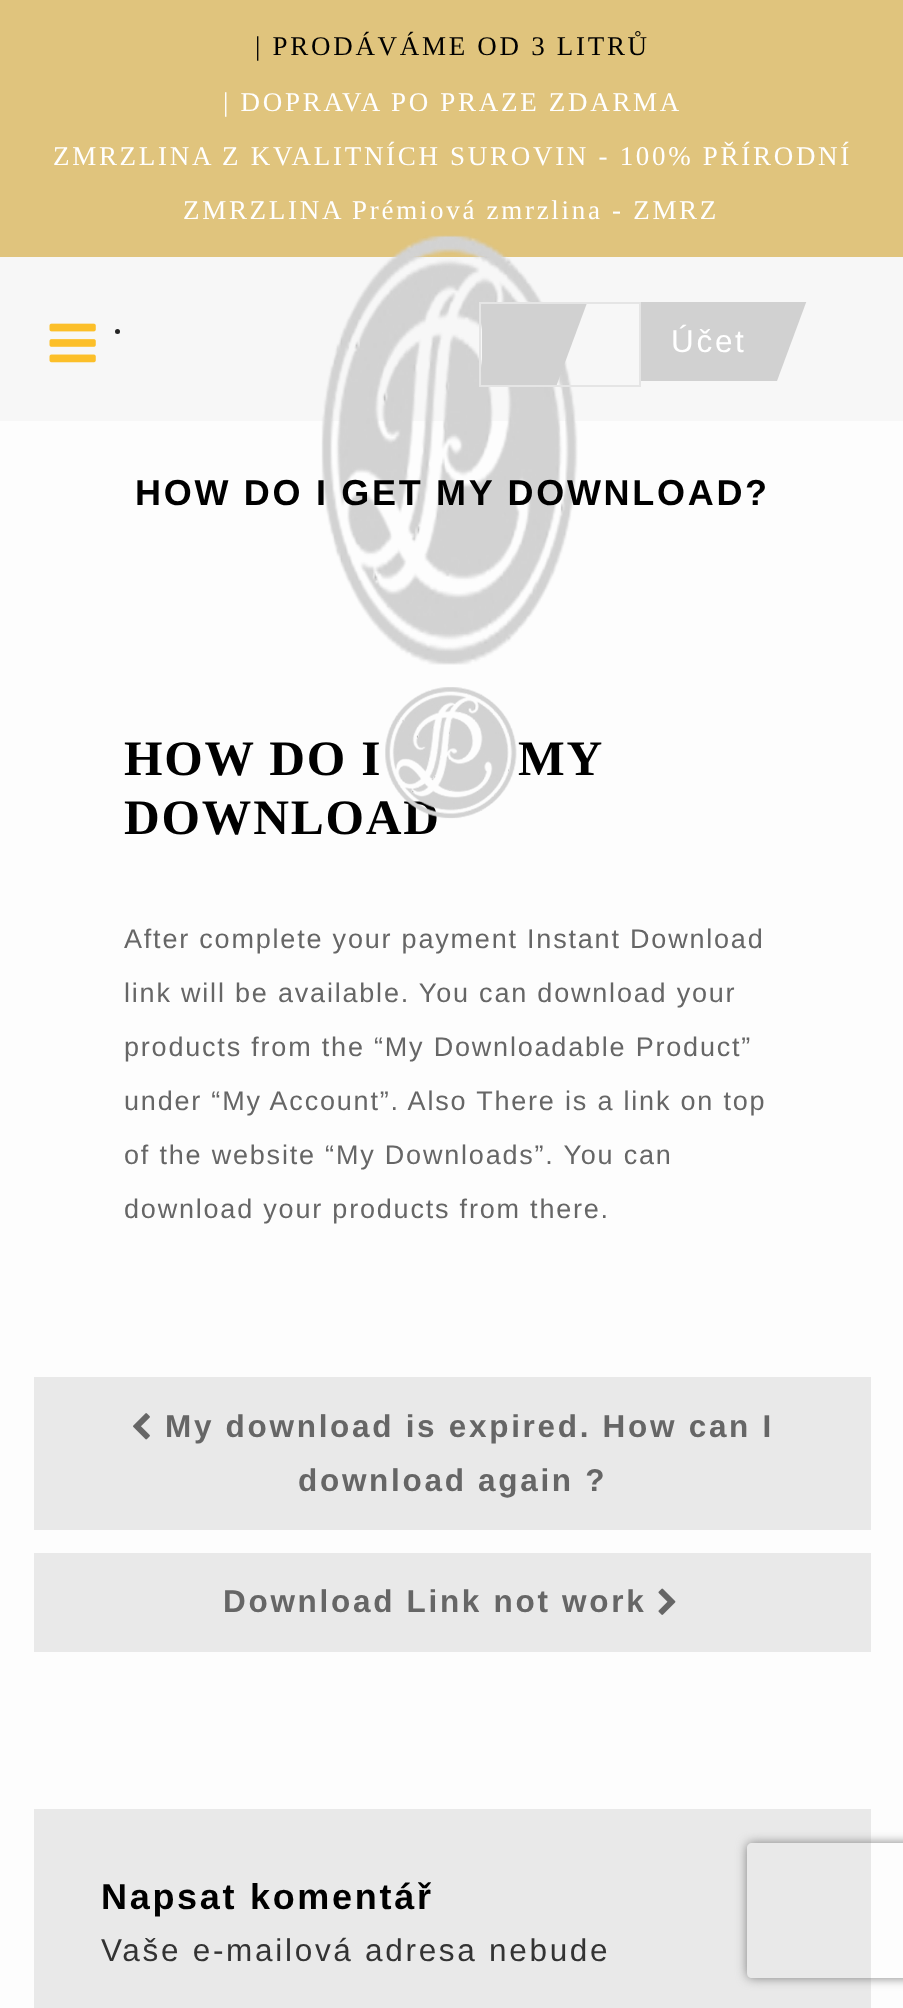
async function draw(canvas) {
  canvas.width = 903;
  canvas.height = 2008;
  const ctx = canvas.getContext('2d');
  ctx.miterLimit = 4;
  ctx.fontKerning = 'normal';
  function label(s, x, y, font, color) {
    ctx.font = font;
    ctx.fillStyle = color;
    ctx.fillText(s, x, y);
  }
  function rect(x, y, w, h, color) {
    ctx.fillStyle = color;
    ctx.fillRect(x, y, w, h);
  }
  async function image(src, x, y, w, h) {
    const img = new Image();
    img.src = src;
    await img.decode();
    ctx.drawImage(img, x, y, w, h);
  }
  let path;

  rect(0, 0, 903, 2008, '#fdfdfd');
  rect(0, 257, 903, 164, '#f7f7f7');
  rect(0, 0, 903, 257, '#e0c47d');
  ctx.letterSpacing = '2.7px';
  label('| PRODÁVÁME OD 3 LITRŮ', 255, 55, '27px Liberation Serif', '#000');
  label('| DOPRAVA PO PRAZE ZDARMA', 223, 111, '27px Liberation Serif', '#fff');
  label('ZMRZLINA Z KVALITNÍCH SUROVIN - 100% PŘÍRODNÍ', 53, 165, '27px Liberation Serif', '#fff');
  label('ZMRZLINA Prémiová zmrzlina - ZMRZ', 183, 219, '27px Liberation Serif', '#fff');
  await image('assets/img1.png', 49, 323, 47, 40);
  ctx.fillStyle = '#242424';
  ctx.beginPath();
  ctx.arc(117.5, 331.5, 2.5, 0, 2 * Math.PI);
  ctx.fill();
  await image('assets/img2.png', 321, 235, 257, 430);
  ctx.letterSpacing = '1.8px';
  label('DOWNLOAD', 124, 834, 'bold 49.5px Liberation Serif', '#000');
  await image('assets/img3.png', 385, 687, 132, 132);
  ctx.strokeStyle = '#e5e5e5';
  ctx.lineWidth = 2;
  ctx.strokeRect(480, 303, 160, 83);
  ctx.save();
  ctx.beginPath();
  ctx.rect(482, 304, 157, 81);
  ctx.clip();
  ctx.fillStyle = '#d1d1d1';
  path = new Path2D('M483 303H587L553 395H450Z');
  ctx.fill(path);
  ctx.restore();
  ctx.save();
  ctx.beginPath();
  ctx.rect(641, 302, 230, 81);
  ctx.clip();
  ctx.fillStyle = '#d1d1d1';
  path = new Path2D('M641 300H807L777 381H612Z');
  ctx.fill(path);
  ctx.restore();
  ctx.letterSpacing = '2.7px';
  label('Účet', 671, 352, '31.5px Liberation Sans', '#fff');
  label('HOW DO I GET MY DOWNLOAD?', 135, 505, 'bold 36px Liberation Sans', '#000');
  ctx.letterSpacing = '1.8px';
  label('HOW DO I', 124, 775, 'bold 49.5px Liberation Serif', '#000');
  label('MY', 518, 775, 'bold 49.5px Liberation Serif', '#000');
  label('After complete your payment Instant Download', 124, 948, '27px Liberation Sans', '#666');
  label('link will be available. You can download your', 124, 1002, '27px Liberation Sans', '#666');
  label('products from the “My Downloadable Product”', 124, 1056, '27px Liberation Sans', '#666');
  label('under “My Account”. Also There is a link on top', 124, 1110, '27px Liberation Sans', '#666');
  label('of the website “My Downloads”. You can', 124, 1164, '27px Liberation Sans', '#666');
  label('download your products from there.', 124, 1218, '27px Liberation Sans', '#666');
  rect(34, 1377, 837, 153, '#e9e9e9');
  await image('assets/img4.png', 133, 1413, 17, 27);
  ctx.letterSpacing = '2.7px';
  label('My download is expired. How can I', 165, 1437, 'bold 31.5px Liberation Sans', '#666');
  label('download again ?', 298, 1491, 'bold 31.5px Liberation Sans', '#666');
  rect(34, 1553, 837, 99, '#e9e9e9');
  label('Download Link not work', 223, 1612, 'bold 31.5px Liberation Sans', '#666');
  await image('assets/img5.png', 658, 1588, 18, 27);
  rect(34, 1809, 837, 199, '#e9e9e9');
  label('Napsat komentář', 101, 1909, 'bold 36px Liberation Sans', '#000');
  label('Vaše e-mailová adresa nebude', 101, 1961, '31.5px Liberation Sans', '#333');
  ctx.save();
  path = new Path2D('M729 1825H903V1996H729ZM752 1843H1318C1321 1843 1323 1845 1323 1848V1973C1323 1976 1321 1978 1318 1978H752C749 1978 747 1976 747 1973V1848C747 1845 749 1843 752 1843Z');
  ctx.clip(path, 'evenodd');
  ctx.fillStyle = '#808080';
  ctx.filter = 'blur(5.5px)';
  ctx.beginPath();
  ctx.roundRect(747, 1843, 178, 135, 5);
  ctx.fill();
  ctx.filter = 'none';
  ctx.restore();
}

draw(document.querySelector('canvas'));
